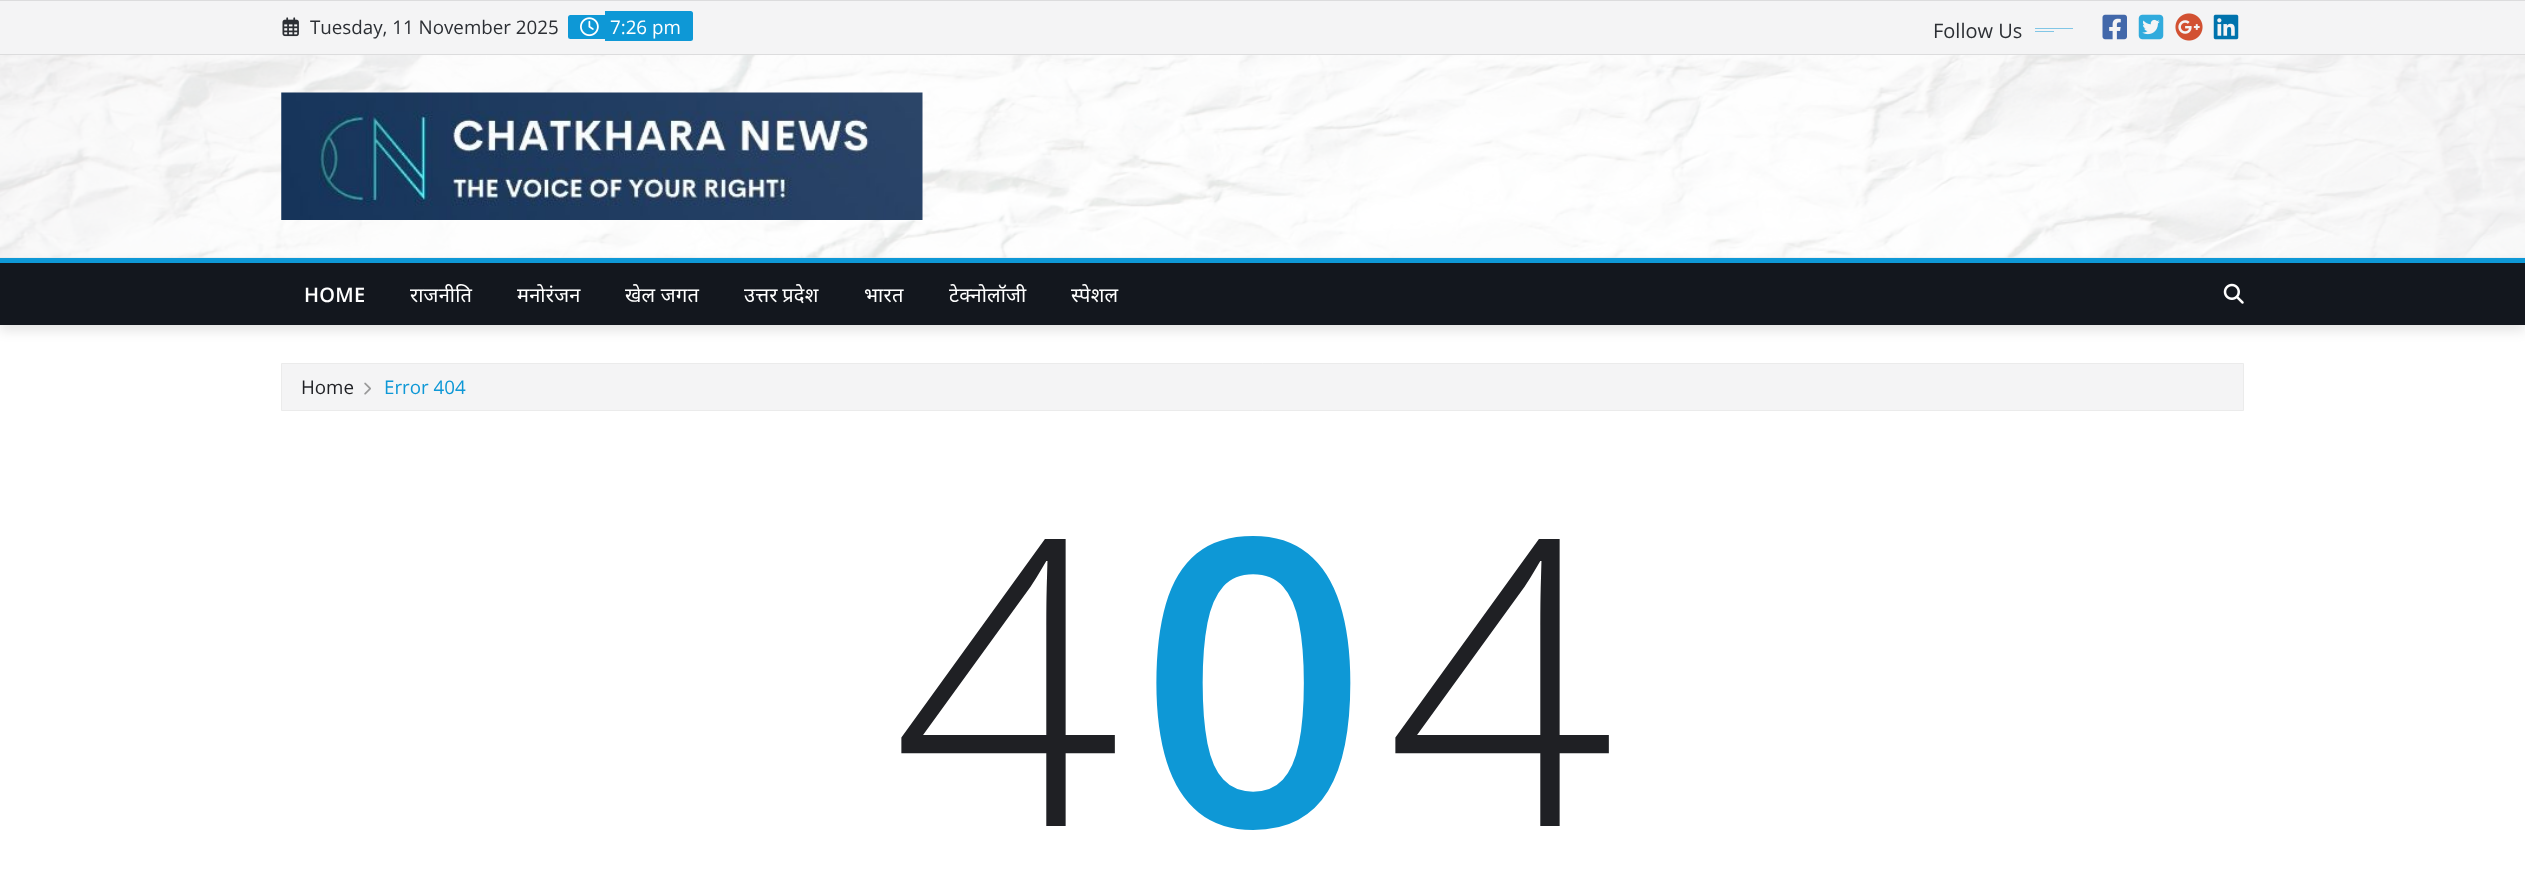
async function draw(canvas) {
  canvas.width = 2525;
  canvas.height = 888;
  const ctx = canvas.getContext('2d');
  ctx.miterLimit = 4;
  ctx.fontKerning = 'normal';
  function label(s, x, y, font, color) {
    ctx.font = font;
    ctx.fillStyle = color;
    ctx.fillText(s, x, y);
  }
  function rect(x, y, w, h, color) {
    ctx.fillStyle = color;
    ctx.fillRect(x, y, w, h);
  }
  async function image(src, x, y, w, h) {
    const img = new Image();
    img.src = src;
    await img.decode();
    ctx.drawImage(img, x, y, w, h);
  }

  rect(0, 0, 2525, 888, '#fff');
  rect(0, 1, 2525, 53, '#f4f4f5');
  rect(0, 0, 2525, 1, '#dcdcdd');
  rect(0, 54, 2525, 1, '#dcdcdd');
  await image('assets/img1.png', 282, 17, 17, 20);
  label('Tuesday, 11 November 2025', 310, 34, '18.75px Open Sans', '#2c2f34');
  ctx.fillStyle = '#0e98d6';
  ctx.beginPath();
  ctx.roundRect(568, 15, 37, 24, [2.5, 0, 0, 2.5]);
  ctx.fill();
  await image('assets/img2.png', 580, 17, 19, 20);
  ctx.beginPath();
  ctx.roundRect(605, 11, 88, 30, [0, 2.5, 2.5, 0]);
  ctx.fill();
  label('7:26 pm', 610, 34, '18.75px Open Sans', '#fff');
  label('Follow Us', 1933, 38, '20px Open Sans', '#2c2f34');
  rect(2035, 28, 38, 1, '#81c6e6');
  rect(2035, 31, 19, 1, '#81c6e6');
  await image('assets/img3.png', 2102, 14, 25, 26);
  await image('assets/img4.png', 2138, 14, 26, 26);
  await image('assets/img5.png', 2175, 13, 28, 28);
  await image('assets/img6.png', 2213, 14, 26, 26);
  rect(0, 257, 2525, 1, '#e8e9ea');
  await image('assets/img7.png', 0, 55, 2525, 203);
  await image('assets/img8.png', 281, 92, 642, 128);
  ctx.fillStyle = '#0000001a';
  ctx.filter = 'blur(6px)';
  ctx.beginPath();
  ctx.rect(0, 264, 2525, 67);
  ctx.fill();
  ctx.filter = 'none';
  rect(0, 263, 2525, 62, '#13171e');
  rect(0, 258, 2525, 5, '#0e98d6');
  ctx.letterSpacing = '0.25px';
  label('HOME', 304, 302, '600 20px Open Sans', '#fff');
  label('राजनीति', 410, 302, '20px Noto Sans', '#fff');
  label('मनोरंजन', 517, 302, '20px Noto Sans', '#fff');
  label('खेल जगत', 625, 302, '20px Noto Sans', '#fff');
  ctx.wordSpacing = '-1px';
  label('उत्तर प्रदेश', 744, 302, '20px Noto Sans', '#fff');
  ctx.wordSpacing = '0px';
  label('भारत', 864, 302, '20px Noto Sans', '#fff');
  label('टेक्नोलॉजी', 949, 302, '20px Noto Sans', '#fff');
  label('स्पेशल', 1071, 302, '20px Noto Sans', '#fff');
  await image('assets/img9.png', 2223, 283, 21, 21);
  ctx.fillStyle = '#f4f4f5';
  ctx.beginPath();
  ctx.rect(281.5, 363.5, 1962, 47);
  ctx.fill();
  ctx.strokeStyle = '#ebebeb';
  ctx.stroke();
  ctx.letterSpacing = '0px';
  label('Home', 301, 394, '18.75px Open Sans', '#1f2024');
  await image('assets/img10.png', 364, 382, 7, 13);
  label('Error 404', 384, 394, '18.75px Open Sans', '#0e98d6');
  ctx.letterSpacing = '19px';
  label('4', 892, 826, '300 400px Open Sans', '#1f2024');
  label('0', 1139, 826, '600 400px Open Sans', '#0e98d6');
  label('4', 1386, 826, '300 400px Open Sans', '#1f2024');
}

draw(document.querySelector('canvas'));
